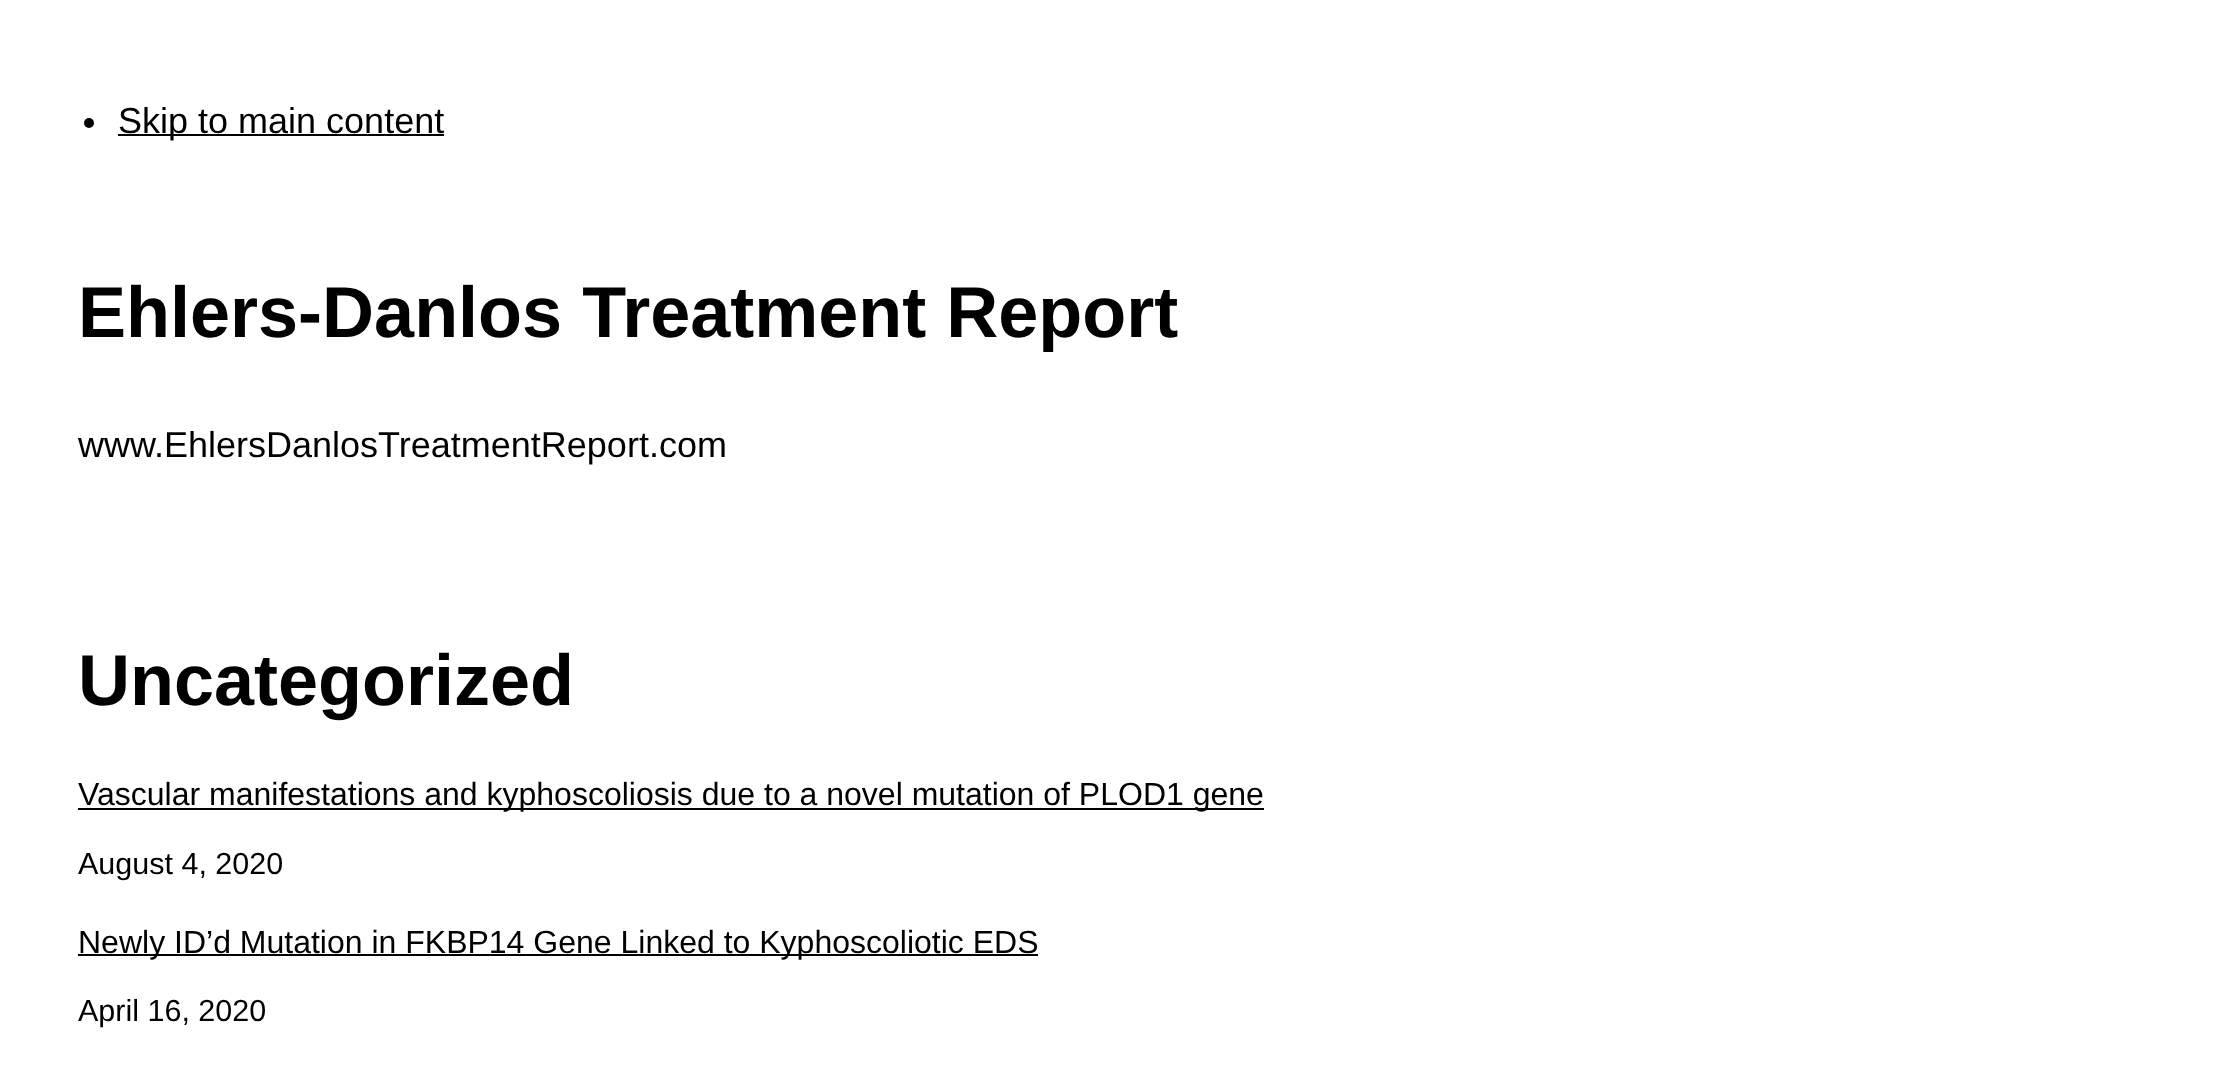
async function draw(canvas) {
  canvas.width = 2225;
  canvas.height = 1081;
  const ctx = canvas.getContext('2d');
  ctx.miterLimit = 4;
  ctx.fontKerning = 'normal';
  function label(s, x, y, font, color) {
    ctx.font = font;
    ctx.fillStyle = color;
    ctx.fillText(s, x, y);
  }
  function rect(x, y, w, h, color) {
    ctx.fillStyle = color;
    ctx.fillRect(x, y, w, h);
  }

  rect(0, 0, 2225, 1081, '#fff');
  ctx.fillStyle = '#000';
  ctx.beginPath();
  ctx.arc(89, 123, 5, 0, 2 * Math.PI);
  ctx.fill();
  rect(118, 134, 326, 2, '#000');
  label('Skip to main content', 118, 133, '36px Liberation Sans', '#000');
  label('Ehlers-Danlos Treatment Report', 78, 337, 'bold 72px Liberation Sans', '#000');
  label('www.EhlersDanlosTreatmentReport.com', 78, 457, '36px Liberation Sans', '#000');
  label('Uncategorized', 78, 705, 'bold 72px Liberation Sans', '#000');
  rect(78, 808, 1186, 2, '#000');
  label('Vascular manifestations and kyphoscoliosis due to a novel mutation of PLOD1 gene', 78, 805, '32px Liberation Sans', '#000');
  label('August 4, 2020', 78, 874, '30.5px Liberation Sans', '#000');
  rect(78, 954, 960, 2, '#000');
  label('Newly ID’d Mutation in FKBP14 Gene Linked to Kyphoscoliotic EDS', 78, 953, '32px Liberation Sans', '#000');
  label('April 16, 2020', 78, 1021, '30.5px Liberation Sans', '#000');
}

draw(document.querySelector('canvas'));
